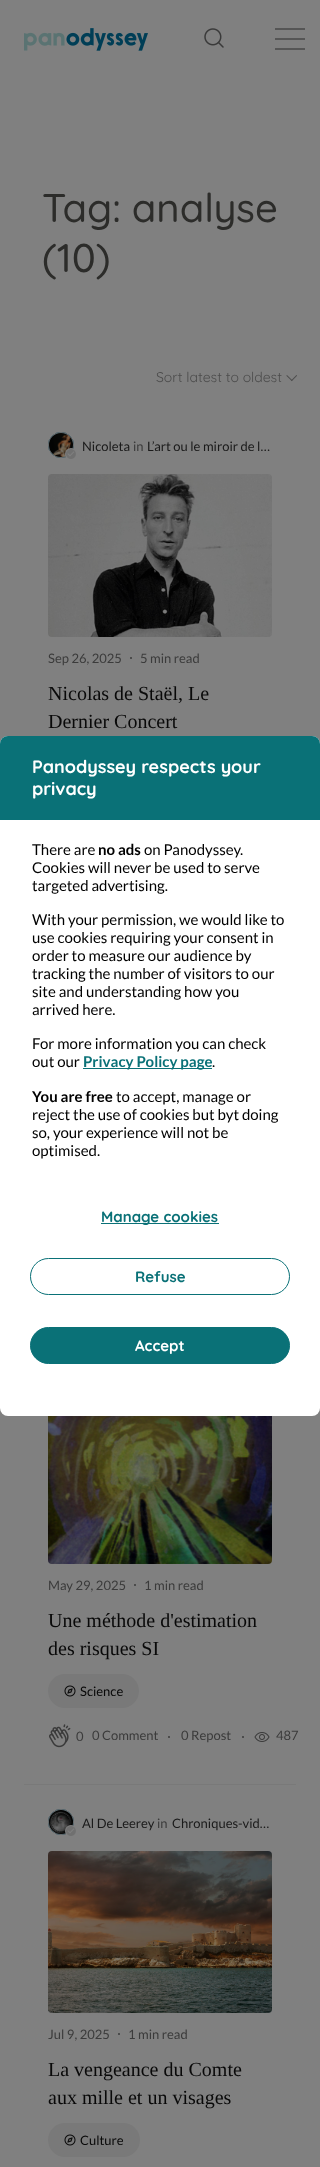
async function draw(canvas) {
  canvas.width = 320;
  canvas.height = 2167;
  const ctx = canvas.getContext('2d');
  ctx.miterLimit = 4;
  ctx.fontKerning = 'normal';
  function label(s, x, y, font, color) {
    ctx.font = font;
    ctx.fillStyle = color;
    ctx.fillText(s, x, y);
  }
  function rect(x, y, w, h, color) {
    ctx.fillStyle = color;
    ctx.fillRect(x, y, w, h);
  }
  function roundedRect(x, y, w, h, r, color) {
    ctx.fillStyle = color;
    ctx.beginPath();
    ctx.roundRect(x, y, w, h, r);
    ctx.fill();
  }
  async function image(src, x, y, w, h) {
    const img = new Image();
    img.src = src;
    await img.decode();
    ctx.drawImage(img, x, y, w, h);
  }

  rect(0, 0, 320, 2167, '#808080');
  await image('assets/img1.png', 24, 28, 124, 23);
  await image('assets/img2.png', 204, 28, 20, 20);
  rect(275, 28, 30, 2, '#555');
  rect(275, 38, 30, 2, '#555');
  rect(275, 48, 30, 2, '#555');
  label('Tag: analyse', 42, 222, '500 40px Quicksand', '#2c2c2a');
  label('(10)', 42, 272, '500 40px Quicksand', '#2c2c2a');
  label('Sort latest to oldest', 156, 382, '14px Quicksand', '#4c4c4c');
  await image('assets/img3.png', 286, 375, 11, 7);
  ctx.beginPath();
  ctx.arc(61, 445, 12.5, 0, 2 * Math.PI);
  ctx.strokeStyle = '#003e56';
  ctx.stroke();
  ctx.beginPath();
  ctx.arc(61, 445, 12.5, 0, 2 * Math.PI);
  ctx.strokeStyle = '#707070';
  ctx.stroke();
  await image('assets/img4.png', 49, 433, 24, 24);
  ctx.fillStyle = '#808080';
  ctx.beginPath();
  ctx.arc(71, 454, 6, 0, 2 * Math.PI);
  ctx.fill();
  await image('assets/img5.png', 66, 449, 10, 10);
  label('Nicoleta', 82, 451, '13px Lato', '#1a1a1a');
  label('in', 133, 451, '13px Lato', '#3b3b3b');
  label('L’art ou le miroir de l…', 147, 451, '13px Lato', '#1a1a1a');
  await image('assets/img6.png', 48, 474, 224, 163);
  label('Sep 26, 2025', 48, 663, '13px Lato', '#3b3b3b');
  ctx.beginPath();
  ctx.arc(131, 658, 1, 0, 2 * Math.PI);
  ctx.fill();
  label('5 min read', 140, 663, '13px Lato', '#3b3b3b');
  label('Nicolas de Staël, Le', 48, 700, '20px Liberation Serif', '#090909');
  label('Dernier Concert', 48, 728, '20px Liberation Serif', '#090909');
  rect(24, 1784, 272, 1, '#797979');
  await image('assets/img7.png', 48, 1416, 224, 148);
  label('May 29, 2025', 48, 1590, '13px Lato', '#3b3b3b');
  ctx.beginPath();
  ctx.arc(135, 1585, 1, 0, 2 * Math.PI);
  ctx.fill();
  label('1 min read', 144, 1590, '13px Lato', '#3b3b3b');
  label('Une méthode d\'estimation', 48, 1627, '20px Liberation Serif', '#090909');
  label('des risques SI', 48, 1655, '20px Liberation Serif', '#090909');
  roundedRect(48, 1674, 91, 34, 17, '#797979');
  await image('assets/img8.png', 64, 1685, 12, 12);
  label('Science', 80, 1696, '13px Lato', '#090909');
  await image('assets/img9.png', 49, 1724, 22, 24);
  label('0', 76, 1741, '13px Lato', '#3b3b3b');
  label('0 Comment', 92, 1740, '13px Lato', '#3b3b3b');
  ctx.beginPath();
  ctx.arc(169, 1737, 1, 0, 2 * Math.PI);
  ctx.fill();
  label('0 Repost', 181, 1740, '13px Lato', '#3b3b3b');
  ctx.beginPath();
  ctx.arc(243, 1737, 1, 0, 2 * Math.PI);
  ctx.fill();
  await image('assets/img10.png', 254, 1732, 16, 10);
  label('487', 276, 1740, '13px Lato', '#3b3b3b');
  ctx.beginPath();
  ctx.arc(61, 1822, 12.5, 0, 2 * Math.PI);
  ctx.strokeStyle = '#003e56';
  ctx.stroke();
  ctx.beginPath();
  ctx.arc(61, 1822, 12.5, 0, 2 * Math.PI);
  ctx.strokeStyle = '#707070';
  ctx.stroke();
  await image('assets/img11.png', 49, 1810, 24, 24);
  ctx.fillStyle = '#808080';
  ctx.beginPath();
  ctx.arc(71, 1831, 6, 0, 2 * Math.PI);
  ctx.fill();
  await image('assets/img12.png', 66, 1826, 10, 10);
  label('Al De Leerey', 82, 1828, '13px Lato', '#1a1a1a');
  label('in', 157, 1828, '13px Lato', '#3b3b3b');
  label('Chroniques-vid…', 172, 1828, '13px Lato', '#1a1a1a');
  await image('assets/img13.png', 48, 1851, 224, 162);
  label('Jul 9, 2025', 48, 2039, '13px Lato', '#3b3b3b');
  ctx.beginPath();
  ctx.arc(119, 2034, 1, 0, 2 * Math.PI);
  ctx.fill();
  label('1 min read', 128, 2039, '13px Lato', '#3b3b3b');
  label('La vengeance du Comte', 48, 2076, '20px Liberation Serif', '#090909');
  label('aux mille et un visages', 48, 2104, '20px Liberation Serif', '#090909');
  roundedRect(48, 2123, 92, 34, 17, '#797979');
  await image('assets/img8.png', 64, 2134, 12, 12);
  label('Culture', 80, 2145, '13px Lato', '#090909');
  roundedRect(0, 736, 320, 680, 8, '#fff');
  ctx.fillStyle = '#0a7177';
  ctx.beginPath();
  ctx.roundRect(0, 736, 320, 84, [8, 8, 0, 0]);
  ctx.fill();
  label('Panodyssey respects your', 32, 773, 'bold 18px Quicksand', '#fff');
  label('privacy', 32, 795, 'bold 18px Quicksand', '#fff');
  label('There are', 32, 855, '15px Lato', '#000');
  label('no ads', 98, 855, 'bold 15px Lato', '#000');
  label('on Panodyssey.', 144, 855, '15px Lato', '#000');
  label('Cookies will never be used to serve', 32, 873, '15px Lato', '#000');
  label('targeted advertising.', 32, 891, '15px Lato', '#000');
  label('With your permission, we would like to', 32, 925, '15px Lato', '#000');
  label('use cookies requiring your consent in', 32, 943, '15px Lato', '#000');
  label('order to measure our audience by', 32, 961, '15px Lato', '#000');
  label('tracking the number of visitors to our', 32, 979, '15px Lato', '#000');
  label('site and understanding how you', 32, 997, '15px Lato', '#000');
  label('arrived here.', 32, 1015, '15px Lato', '#000');
  label('For more information you can check', 32, 1049, '15px Lato', '#000');
  label('out our', 32, 1067, '15px Lato', '#000');
  rect(83, 1068, 129, 1, '#0a7177');
  label('Privacy Policy page', 83, 1067, 'bold 15px Lato', '#0a7177');
  label('.', 212, 1067, '15px Lato', '#000');
  label('You are free', 32, 1102, 'bold 15px Lato', '#000');
  label('to accept, manage or', 116, 1102, '15px Lato', '#000');
  label('reject the use of cookies but byt doing', 32, 1120, '15px Lato', '#000');
  label('so, your experience will not be', 32, 1138, '15px Lato', '#000');
  label('optimised.', 32, 1156, '15px Lato', '#000');
  rect(101, 1223, 118, 1, '#0a7177');
  label('Manage cookies', 101, 1222, 'bold 15px Quicksand', '#0a7177');
  ctx.beginPath();
  ctx.roundRect(30.5, 1258.5, 259, 36, 18);
  ctx.strokeStyle = '#0a7177';
  ctx.stroke();
  label('Refuse', 135, 1282, 'bold 15px Quicksand', '#0a7177');
  ctx.beginPath();
  ctx.roundRect(30.5, 1327.5, 259, 36, 18);
  ctx.fill();
  ctx.stroke();
  label('Accept', 135, 1351, 'bold 15px Quicksand', '#fff');
}

draw(document.querySelector('canvas'));
